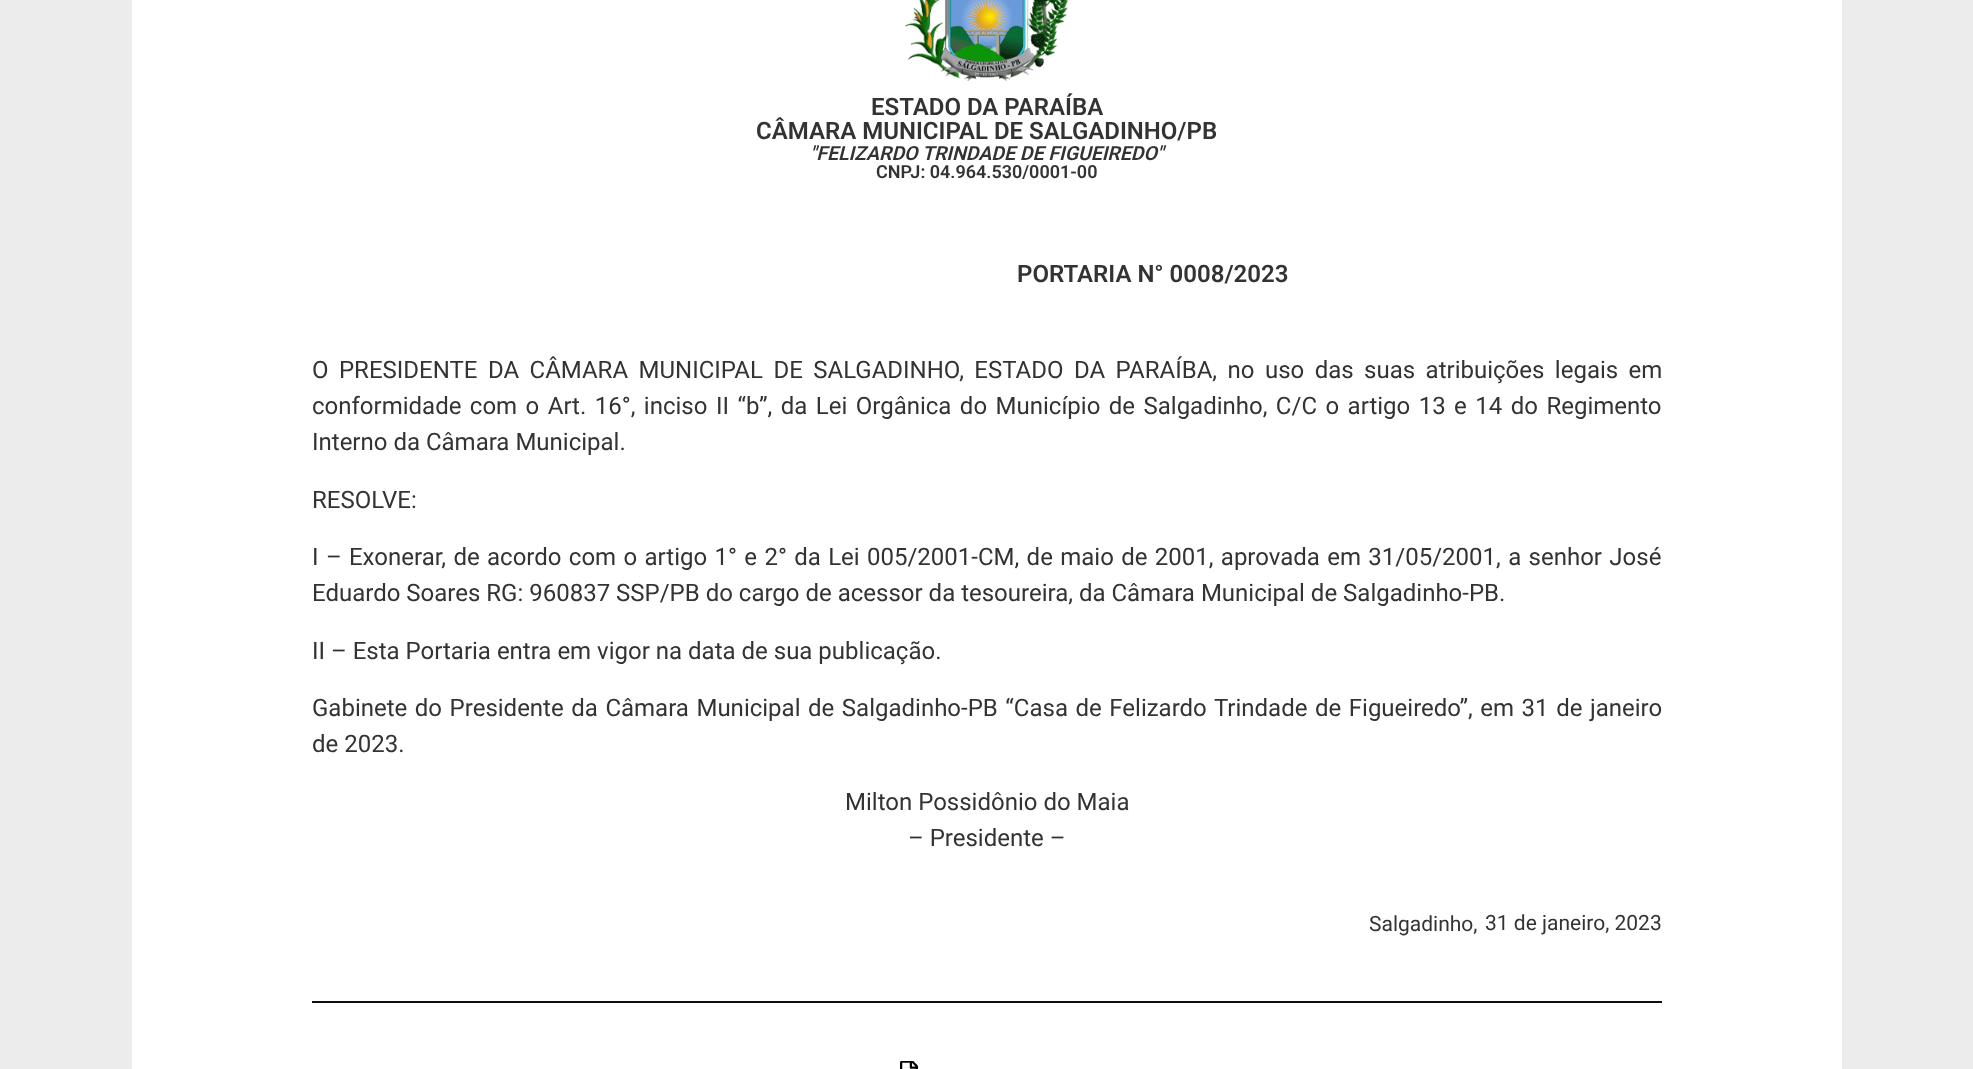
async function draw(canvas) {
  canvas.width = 1973;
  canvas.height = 1069;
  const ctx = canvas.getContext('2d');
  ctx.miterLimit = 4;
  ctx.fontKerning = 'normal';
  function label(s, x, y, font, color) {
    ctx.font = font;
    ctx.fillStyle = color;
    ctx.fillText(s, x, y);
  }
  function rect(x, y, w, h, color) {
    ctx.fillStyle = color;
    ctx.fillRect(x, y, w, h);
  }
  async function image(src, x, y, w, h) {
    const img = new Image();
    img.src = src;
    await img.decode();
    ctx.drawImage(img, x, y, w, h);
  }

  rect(0, 0, 1973, 1069, '#edecec');
  rect(132, 0, 1710, 1069, '#fff');
  await image('assets/img1.png', 904, 0, 165, 81);
  label('ESTADO DA PARAÍBA', 871, 115, '600 24px Roboto', '#333');
  label('CÂMARA MUNICIPAL DE SALGADINHO/PB', 756, 139, '600 24px Roboto', '#333');
  label('"FELIZARDO TRINDADE DE FIGUEIREDO"', 810, 160, 'italic 600 19.5px Roboto', '#333');
  label('CNPJ: 04.964.530/0001-00', 876, 178, '600 18px Roboto', '#333');
  label('PORTARIA N° 0008/2023', 1017, 282, '600 24px Roboto', '#333');
  ctx.wordSpacing = '4.5px';
  label('O PRESIDENTE DA CÂMARA MUNICIPAL DE SALGADINHO, ESTADO DA PARAÍBA, no uso das suas atribuições legais em', 312, 378, '24px Roboto', '#333');
  ctx.wordSpacing = '2.5px';
  label('conformidade com o Art. 16°, inciso II “b”, da Lei Orgânica do Município de Salgadinho, C/C o artigo 13 e 14 do Regimento', 312, 414, '24px Roboto', '#333');
  ctx.wordSpacing = '0px';
  label('Interno da Câmara Municipal.', 312, 450, '24px Roboto', '#333');
  label('RESOLVE:', 312, 508, '24px Roboto', '#333');
  ctx.wordSpacing = '1.4px';
  label('I – Exonerar, de acordo com o artigo 1° e 2° da Lei 005/2001-CM, de maio de 2001, aprovada em 31/05/2001, a senhor José', 312, 565, '24px Roboto', '#333');
  ctx.wordSpacing = '0px';
  label('Eduardo Soares RG: 960837 SSP/PB do cargo de acessor da tesoureira, da Câmara Municipal de Salgadinho-PB.', 312, 601, '24px Roboto', '#333');
  label('II – Esta Portaria entra em vigor na data de sua publicação.', 312, 659, '24px Roboto', '#333');
  ctx.wordSpacing = '1.6px';
  label('Gabinete do Presidente da Câmara Municipal de Salgadinho-PB “Casa de Felizardo Trindade de Figueiredo”, em 31 de janeiro', 312, 716, '24px Roboto', '#333');
  ctx.wordSpacing = '0px';
  label('de 2023.', 312, 752, '24px Roboto', '#333');
  label('Milton Possidônio do Maia', 845, 810, '24px Roboto', '#333');
  label('– Presidente –', 908, 846, '24px Roboto', '#333');
  label('Salgadinho,', 1369, 931, '21px Roboto', '#333');
  label('31 de janeiro, 2023', 1485, 930, '21px Roboto', '#333');
  rect(312, 1001, 1350, 2, '#0c0d0e');
  await image('assets/img2.png', 900, 1061, 18, 8);
}

draw(document.querySelector('canvas'));
